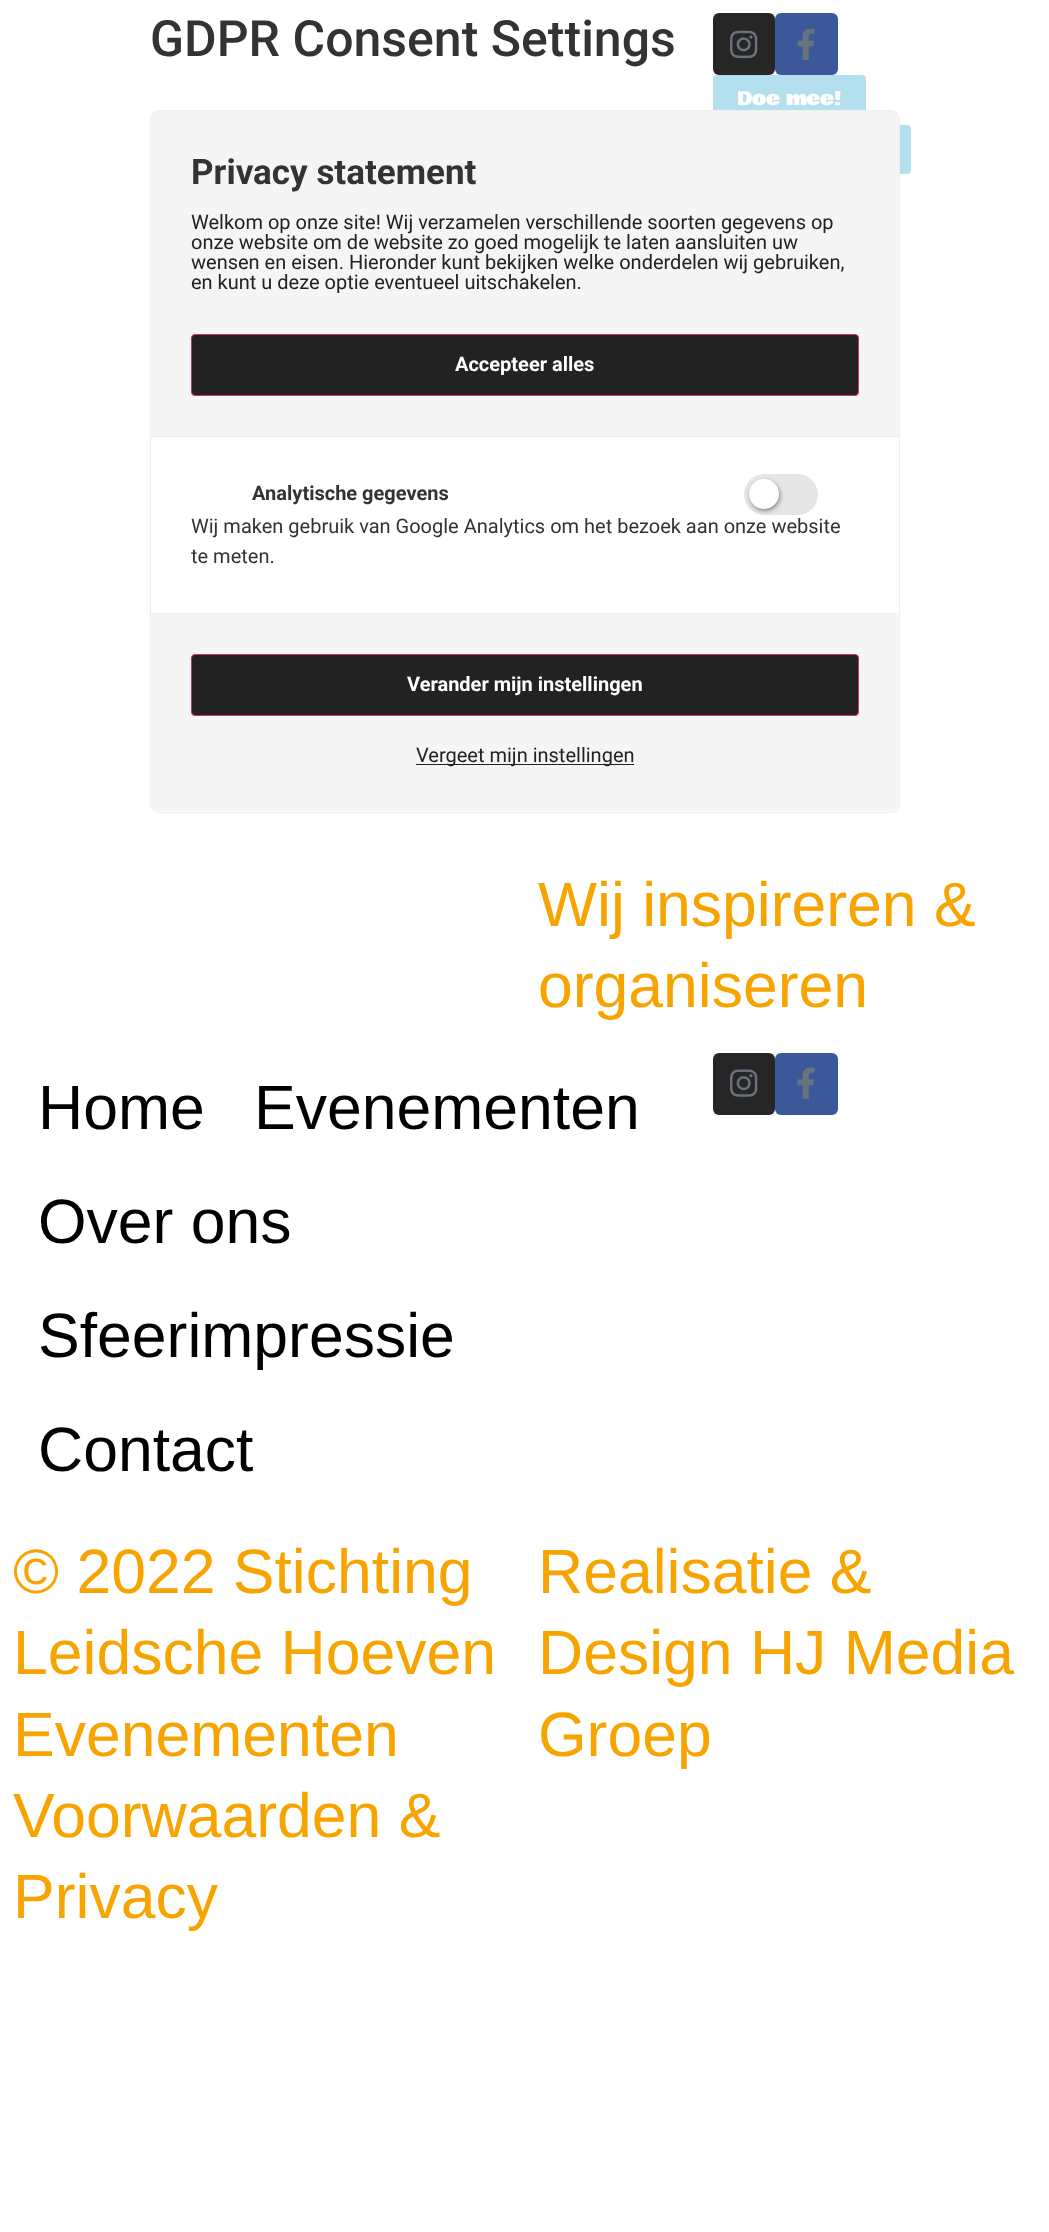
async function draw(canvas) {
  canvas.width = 1049;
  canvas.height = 2232;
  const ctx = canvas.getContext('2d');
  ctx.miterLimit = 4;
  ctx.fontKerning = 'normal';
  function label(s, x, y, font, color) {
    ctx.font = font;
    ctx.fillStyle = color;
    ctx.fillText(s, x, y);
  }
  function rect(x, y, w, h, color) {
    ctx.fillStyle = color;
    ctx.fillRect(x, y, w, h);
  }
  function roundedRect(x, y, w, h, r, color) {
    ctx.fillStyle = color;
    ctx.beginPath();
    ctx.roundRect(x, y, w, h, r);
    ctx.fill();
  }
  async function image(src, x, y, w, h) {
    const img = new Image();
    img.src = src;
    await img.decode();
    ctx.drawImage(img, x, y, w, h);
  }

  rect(0, 0, 1049, 2232, '#fff');
  label('GDPR Consent Settings', 150, 56, '500 50px Roboto', '#333');
  roundedRect(713, 75, 153, 50, 4, '#b3dfef');
  roundedRect(839, 125, 72, 49, 4, '#b3dfef');
  ctx.beginPath();
  ctx.roundRect(150.5, 110.5, 749, 702, 8.5);
  ctx.strokeStyle = '#eee';
  ctx.stroke();
  ctx.fillStyle = '#f5f5f5';
  ctx.beginPath();
  ctx.roundRect(151, 111, 748, 223, [8, 8, 0, 0]);
  ctx.fill();
  label('Privacy statement', 191, 184, 'bold 35px Roboto', '#333');
  label('Welkom op onze site! Wij verzamelen verschillende soorten gegevens op', 191, 229, '20px Roboto', '#222');
  label('onze website om de website zo goed mogelijk te laten aansluiten uw', 191, 249, '20px Roboto', '#222');
  label('wensen en eisen. Hieronder kunt bekijken welke onderdelen wij gebruiken,', 191, 269, '20px Roboto', '#222');
  label('en kunt u deze optie eventueel uitschakelen.', 191, 289, '20px Roboto', '#222');
  rect(151, 334, 748, 102, '#f5f5f5');
  ctx.fillStyle = '#222';
  ctx.beginPath();
  ctx.roundRect(191.5, 334.5, 667, 61, 3.5);
  ctx.fill();
  ctx.strokeStyle = '#c36';
  ctx.stroke();
  label('Accepteer alles', 455, 371, 'bold 20px Roboto', '#fff');
  rect(151, 436, 748, 1, '#eee');
  rect(151, 613, 748, 1, '#eee');
  label('Analytische gegevens', 252, 500, 'bold 20px Roboto', '#333');
  roundedRect(744, 474, 74, 41, 20.5, '#e5e5e5');
  ctx.fillStyle = '#00000066';
  ctx.filter = 'blur(2px)';
  ctx.beginPath();
  ctx.roundRect(750, 481, 30, 30, 15);
  ctx.fill();
  ctx.filter = 'none';
  ctx.fillStyle = '#fff';
  ctx.beginPath();
  ctx.arc(764, 494, 15, 0, 2 * Math.PI);
  ctx.fill();
  label('Wij maken gebruik van Google Analytics om het bezoek aan onze website', 191, 533, '20px Roboto', '#333');
  label('te meten.', 191, 563, '20px Roboto', '#333');
  ctx.fillStyle = '#f5f5f5';
  ctx.beginPath();
  ctx.roundRect(151, 614, 748, 197, [0, 0, 8, 8]);
  ctx.fill();
  ctx.fillStyle = '#222';
  ctx.beginPath();
  ctx.roundRect(191.5, 654.5, 667, 61, 3.5);
  ctx.fill();
  ctx.stroke();
  label('Verander mijn instellingen', 407, 691, 'bold 20px Roboto', '#fff');
  rect(416, 764, 218, 1, '#222');
  label('Vergeet mijn instellingen', 416, 762, '20px Roboto', '#222');
  roundedRect(713, 13, 62, 62, 6, '#262626');
  await image('assets/img1.png', 730, 30, 28, 29);
  roundedRect(775, 13, 63, 62, 6, '#3b5998');
  await image('assets/img2.png', 797, 28, 18, 32);
  label('Doe mee!', 737, 105, '18.75px Bowlby One', '#fff');
  label('Wij inspireren &', 538, 926, '62.5px Liberation Sans', '#f7a400');
  label('organiseren', 538, 1007, '62.5px Liberation Sans', '#f7a400');
  label('Home', 38, 1129, '62.5px Liberation Sans', '#000');
  label('Evenementen', 254, 1129, '62.5px Liberation Sans', '#000');
  label('Over ons', 38, 1243, '62.5px Liberation Sans', '#000');
  label('Sfeerimpressie', 38, 1357, '62.5px Liberation Sans', '#000');
  label('Contact', 38, 1471, '62.5px Liberation Sans', '#000');
  roundedRect(713, 1053, 62, 62, 6, '#262626');
  await image('assets/img3.png', 730, 1069, 28, 28);
  roundedRect(775, 1053, 63, 62, 6, '#3b5998');
  await image('assets/img4.png', 797, 1067, 18, 32);
  label('© 2022 Stichting', 13, 1593, '62.5px Liberation Sans', '#f7a400');
  label('Leidsche Hoeven', 13, 1674, '62.5px Liberation Sans', '#f7a400');
  label('Evenementen', 13, 1756, '62.5px Liberation Sans', '#f7a400');
  label('Voorwaarden &', 13, 1837, '62.5px Liberation Sans', '#f7a400');
  label('Privacy', 13, 1918, '62.5px Liberation Sans', '#f7a400');
  label('Realisatie &', 538, 1593, '62.5px Liberation Sans', '#f7a400');
  label('Design HJ Media', 538, 1674, '62.5px Liberation Sans', '#f7a400');
  label('Groep', 538, 1756, '62.5px Liberation Sans', '#f7a400');
}

draw(document.querySelector('canvas'));
